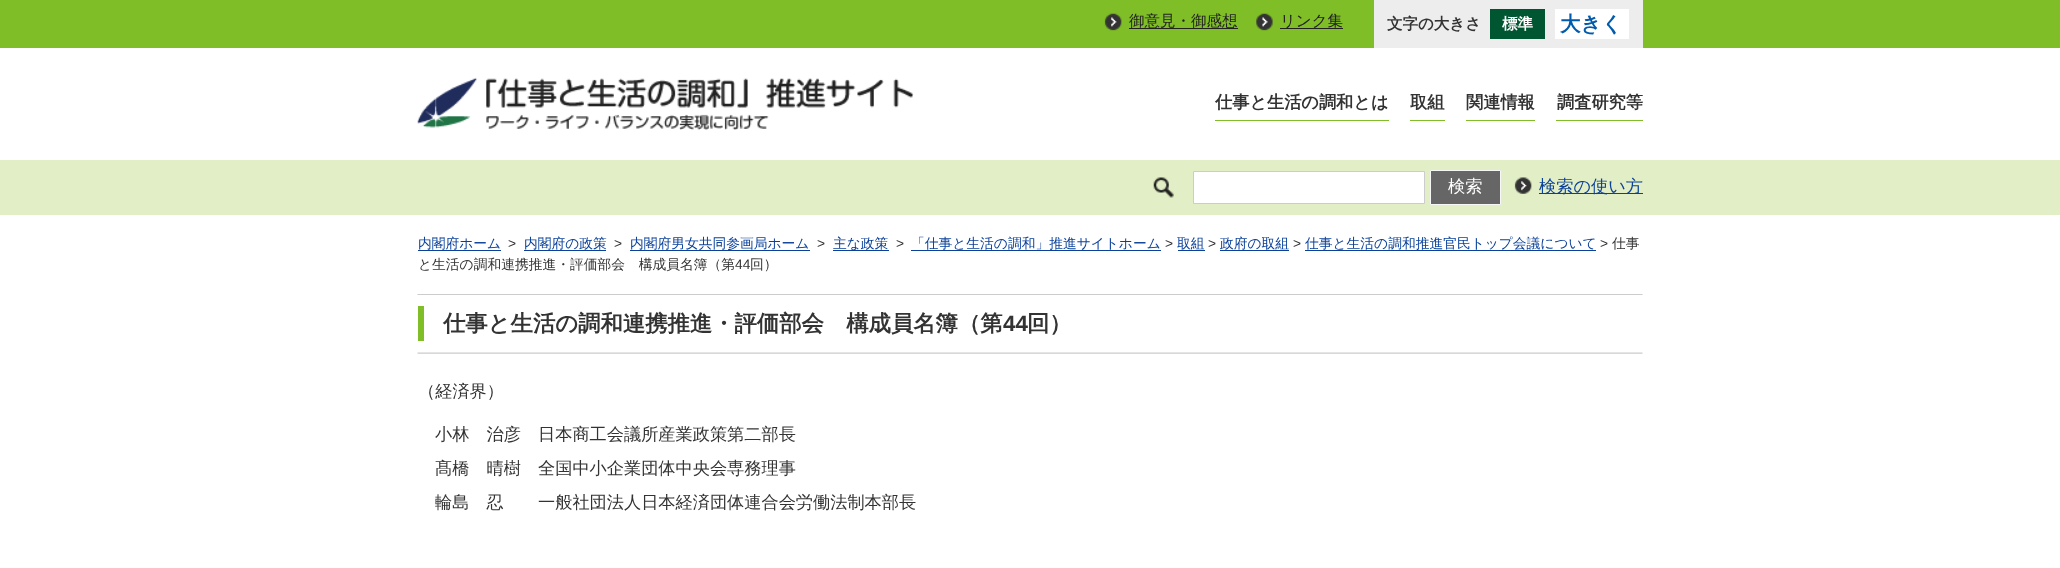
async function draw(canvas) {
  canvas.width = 2060;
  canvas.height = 568;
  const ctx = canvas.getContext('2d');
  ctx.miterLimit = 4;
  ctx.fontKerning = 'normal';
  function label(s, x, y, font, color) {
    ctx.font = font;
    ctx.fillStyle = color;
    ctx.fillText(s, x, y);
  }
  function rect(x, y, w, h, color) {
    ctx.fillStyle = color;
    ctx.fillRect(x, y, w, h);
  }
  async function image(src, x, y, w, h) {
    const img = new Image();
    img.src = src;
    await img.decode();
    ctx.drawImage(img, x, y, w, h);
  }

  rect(0, 0, 2060, 568, '#fff');
  rect(0, 0, 2060, 48, '#7fbe26');
  await image('assets/img1.png', 1104, 13, 18, 18);
  rect(1129, 28, 109, 1, '#222');
  label('御意見・御感想', 1129, 26, '500 15.5px WenQuanYi Zen Hei', '#222');
  await image('assets/img2.png', 1256, 13, 17, 18);
  rect(1280, 28, 63, 1, '#222');
  label('リンク集', 1280, 26, '500 15.5px WenQuanYi Zen Hei', '#222');
  rect(1374, 0, 269, 48, '#ededed');
  label('文字の大きさ', 1387, 29, 'bold 15.5px WenQuanYi Zen Hei', '#333');
  rect(1490, 9, 55, 30, '#005631');
  label('標準', 1502, 29, 'bold 15.5px WenQuanYi Zen Hei', '#fff');
  rect(1555, 9, 74, 30, '#fff');
  label('大きく', 1560, 31, 'bold 20.5px WenQuanYi Zen Hei', '#005bac');
  await image('assets/img3.png', 417, 77, 497, 53);
  rect(1215, 120, 174, 1, '#7fbe26');
  label('仕事と生活の調和とは', 1215, 108, 'bold 17.2px WenQuanYi Zen Hei', '#333');
  rect(1410, 120, 35, 1, '#7fbe26');
  label('取組', 1410, 108, 'bold 17.2px WenQuanYi Zen Hei', '#333');
  rect(1466, 120, 69, 1, '#7fbe26');
  label('関連情報', 1466, 108, 'bold 17.2px WenQuanYi Zen Hei', '#333');
  rect(1556, 120, 87, 1, '#7fbe26');
  label('調査研究等', 1557, 108, 'bold 17.2px WenQuanYi Zen Hei', '#333');
  rect(0, 160, 2060, 55, '#e2eec5');
  await image('assets/img4.png', 1153, 177, 21, 21);
  ctx.fillStyle = '#fff';
  ctx.beginPath();
  ctx.rect(1193.5, 171.5, 231, 32);
  ctx.fill();
  ctx.strokeStyle = '#ccc';
  ctx.stroke();
  ctx.fillStyle = '#666';
  ctx.beginPath();
  ctx.rect(1430.5, 170.5, 70, 34);
  ctx.fill();
  ctx.strokeStyle = '#f6f6f6';
  ctx.stroke();
  label('検索', 1448, 192, '500 17.2px WenQuanYi Zen Hei', '#fff');
  await image('assets/img5.png', 1514, 177, 18, 17);
  rect(1539, 193, 104, 1, '#0b4199');
  label('検索の使い方', 1539, 192, '500 17.2px WenQuanYi Zen Hei', '#0b4199');
  label('内閣府ホーム', 418, 248, '500 13.75px WenQuanYi Zen Hei', '#0b4199');
  rect(418, 250, 83, 1, '#0b4199');
  label('>', 508, 248, '13.75px Liberation Sans', '#333');
  label('内閣府の政策', 524, 248, '500 13.75px WenQuanYi Zen Hei', '#0b4199');
  rect(524, 250, 82, 1, '#0b4199');
  label('>', 614, 248, '13.75px Liberation Sans', '#333');
  rect(630, 250, 180, 1, '#0b4199');
  label('内閣府男女共同参画局ホーム', 630, 248, '500 13.75px WenQuanYi Zen Hei', '#0b4199');
  label('>', 817, 248, '13.75px Liberation Sans', '#333');
  rect(833, 250, 56, 1, '#0b4199');
  label('主な政策', 833, 248, '500 13.75px WenQuanYi Zen Hei', '#0b4199');
  label('>', 896, 248, '13.75px Liberation Sans', '#333');
  label('「仕事と生活の調和」推進サイトホーム', 911, 248, '500 13.75px WenQuanYi Zen Hei', '#0b4199');
  rect(911, 250, 250, 1, '#0b4199');
  label('>', 1165, 248, '13.75px Liberation Sans', '#333');
  label('取組', 1177, 248, '500 13.75px WenQuanYi Zen Hei', '#0b4199');
  rect(1178, 250, 27, 1, '#0b4199');
  label('>', 1208, 248, '13.75px Liberation Sans', '#333');
  label('政府の取組', 1220, 248, '500 13.75px WenQuanYi Zen Hei', '#0b4199');
  rect(1220, 250, 69, 1, '#0b4199');
  label('>', 1293, 248, '13.75px Liberation Sans', '#333');
  label('仕事と生活の調和推進官民トップ会議について', 1305, 248, '500 13.75px WenQuanYi Zen Hei', '#0b4199');
  rect(1305, 250, 291, 1, '#0b4199');
  label('>', 1600, 248, '13.75px Liberation Sans', '#333');
  label('仕事', 1612, 248, '500 13.75px WenQuanYi Zen Hei', '#333');
  label('と生活の調和連携推進・評価部会　構成員名簿（第', 418, 269, '500 13.75px WenQuanYi Zen Hei', '#333');
  label('44', 735, 269, '13.75px Liberation Sans', '#333');
  label('回）', 750, 269, '500 13.75px WenQuanYi Zen Hei', '#333');
  rect(418, 306, 6, 35, '#7fbe26');
  await image('assets/img6.png', 417, 294, 1226, 1);
  label('仕事と生活の調和連携推進・評価部会　構成員名簿（第', 443, 331, 'bold 22.35px WenQuanYi Zen Hei', '#333');
  label('44', 1003, 331, 'bold 22.35px Liberation Sans', '#333');
  label('回）', 1027, 331, 'bold 22.35px WenQuanYi Zen Hei', '#333');
  await image('assets/img7.png', 417, 352, 1226, 2);
  label('（経済界）', 418, 397, '500 17.2px WenQuanYi Zen Hei', '#333');
  label('小林　治彦', 435, 440, '500 17.2px WenQuanYi Zen Hei', '#333');
  label('日本商工会議所産業政策第二部長', 538, 440, '500 17.2px WenQuanYi Zen Hei', '#333');
  label('髙橋　晴樹', 435, 474, '500 17.2px WenQuanYi Zen Hei', '#333');
  label('全国中小企業団体中央会専務理事', 538, 474, '500 17.2px WenQuanYi Zen Hei', '#333');
  label('輪島　忍', 435, 508, '500 17.2px WenQuanYi Zen Hei', '#333');
  label('一般社団法人日本経済団体連合会労働法制本部長', 538, 508, '500 17.2px WenQuanYi Zen Hei', '#333');
}

draw(document.querySelector('canvas'));
